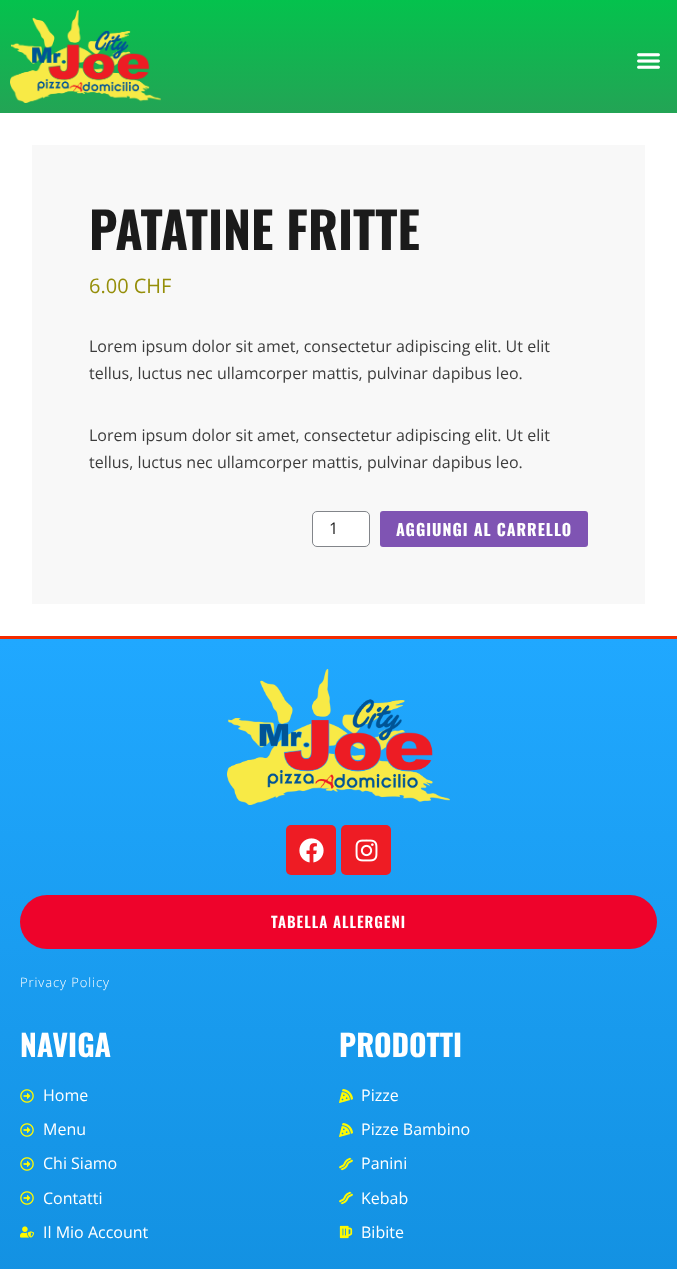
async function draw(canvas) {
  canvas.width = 677;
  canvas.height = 1269;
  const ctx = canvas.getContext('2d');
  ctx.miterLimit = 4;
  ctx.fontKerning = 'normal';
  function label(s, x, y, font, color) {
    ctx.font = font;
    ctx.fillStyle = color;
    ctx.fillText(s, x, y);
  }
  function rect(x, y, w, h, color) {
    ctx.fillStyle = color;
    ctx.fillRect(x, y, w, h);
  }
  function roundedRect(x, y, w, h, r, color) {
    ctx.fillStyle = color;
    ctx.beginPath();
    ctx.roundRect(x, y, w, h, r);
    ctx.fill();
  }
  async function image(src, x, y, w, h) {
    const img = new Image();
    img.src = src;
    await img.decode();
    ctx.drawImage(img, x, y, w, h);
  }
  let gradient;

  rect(0, 0, 677, 1269, '#fff');
  gradient = ctx.createLinearGradient(339, 0, 339, 113);
  gradient.addColorStop(0, '#04c24d');
  gradient.addColorStop(1, '#23a455');
  ctx.fillStyle = gradient;
  ctx.fillRect(0, 0, 677, 113);
  await image('assets/img1.png', 10, 10, 151, 93);
  await image('assets/img2.png', 637, 53, 23, 16);
  rect(32, 145, 613, 459, '#f8f8f8');
  label('PATATINE FRITTE', 89, 250, 'bold 50px Oswald', '#1b1b1b');
  label('6.00 CHF', 89, 293, '20px Open Sans', '#958e09');
  label('Lorem ipsum dolor sit amet, consectetur adipiscing elit. Ut elit', 89, 352, '16px Open Sans', '#3c3c3c');
  label('tellus, luctus nec ullamcorper mattis, pulvinar dapibus leo.', 89, 379, '16px Open Sans', '#3c3c3c');
  label('Lorem ipsum dolor sit amet, consectetur adipiscing elit. Ut elit', 89, 441, '16px Open Sans', '#3c3c3c');
  label('tellus, luctus nec ullamcorper mattis, pulvinar dapibus leo.', 89, 468, '16px Open Sans', '#3c3c3c');
  ctx.fillStyle = '#fff';
  ctx.beginPath();
  ctx.roundRect(312.5, 511.5, 57, 35, 4.5);
  ctx.fill();
  ctx.strokeStyle = '#82858a';
  ctx.stroke();
  label('1', 329, 534, '16px Open Sans', '#1b1b1b');
  roundedRect(380, 511, 208, 36, 3, '#7f54b3');
  ctx.letterSpacing = '1px';
  label('AGGIUNGI AL CARRELLO', 396, 536, 'bold 16px Oswald', '#fff');
  gradient = ctx.createLinearGradient(338, 639, 339, 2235);
  gradient.addColorStop(0, '#20a8ff');
  gradient.addColorStop(1, '#006fb6');
  ctx.fillStyle = gradient;
  ctx.fillRect(0, 639, 677, 630);
  rect(0, 636, 677, 3, '#f42c00');
  await image('assets/img3.png', 227, 669, 223, 136);
  roundedRect(286, 825, 50, 50, 5, '#ee1c24');
  await image('assets/img4.png', 299, 838, 25, 25);
  roundedRect(341, 825, 50, 50, 5, '#ee1c24');
  await image('assets/img5.png', 355, 839, 23, 23);
  roundedRect(20, 895, 637, 54, 27, '#ee032b');
  label('TABELLA ALLERGENI', 271, 928, '600 15px Oswald', '#fff');
  ctx.letterSpacing = '0.9px';
  label('Privacy Policy', 20, 987, '300 13px Open Sans', '#fff');
  ctx.letterSpacing = '0px';
  label('NAVIGA', 20, 1057, 'bold 30px Oswald', '#fff');
  await image('assets/img6.png', 20, 1089, 14, 14);
  label('Home', 43, 1101, '16px Open Sans', '#fff');
  await image('assets/img7.png', 20, 1123, 14, 14);
  label('Menu', 43, 1135, '16px Open Sans', '#fff');
  await image('assets/img8.png', 20, 1157, 14, 14);
  label('Chi Siamo', 43, 1169, '16px Open Sans', '#fff');
  await image('assets/img9.png', 20, 1191, 14, 14);
  label('Contatti', 43, 1204, '16px Open Sans', '#fff');
  await image('assets/img10.png', 20, 1226, 14, 12);
  label('Il Mio Account', 43, 1238, '16px Open Sans', '#fff');
  label('PRODOTTI', 339, 1057, 'bold 30px Oswald', '#fff');
  await image('assets/img11.png', 339, 1089, 14, 14);
  label('Pizze', 361, 1101, '16px Open Sans', '#fff');
  await image('assets/img12.png', 339, 1123, 14, 14);
  label('Pizze Bambino', 361, 1135, '16px Open Sans', '#fff');
  await image('assets/img13.png', 339, 1157, 14, 14);
  label('Panini', 361, 1169, '16px Open Sans', '#fff');
  await image('assets/img14.png', 339, 1191, 14, 14);
  label('Kebab', 361, 1204, '16px Open Sans', '#fff');
  await image('assets/img15.png', 339, 1225, 14, 14);
  label('Bibite', 361, 1238, '16px Open Sans', '#fff');
}

draw(document.querySelector('canvas'));
